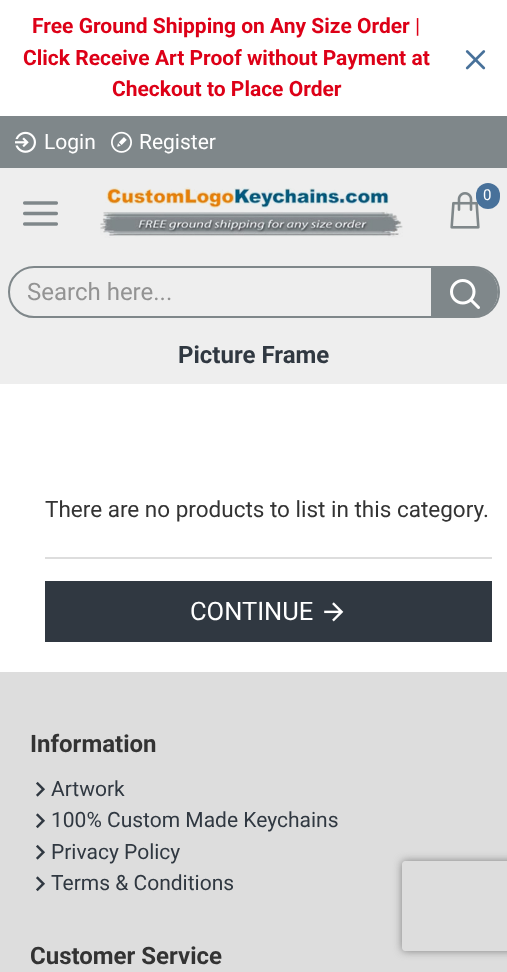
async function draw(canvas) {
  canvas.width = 507;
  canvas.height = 972;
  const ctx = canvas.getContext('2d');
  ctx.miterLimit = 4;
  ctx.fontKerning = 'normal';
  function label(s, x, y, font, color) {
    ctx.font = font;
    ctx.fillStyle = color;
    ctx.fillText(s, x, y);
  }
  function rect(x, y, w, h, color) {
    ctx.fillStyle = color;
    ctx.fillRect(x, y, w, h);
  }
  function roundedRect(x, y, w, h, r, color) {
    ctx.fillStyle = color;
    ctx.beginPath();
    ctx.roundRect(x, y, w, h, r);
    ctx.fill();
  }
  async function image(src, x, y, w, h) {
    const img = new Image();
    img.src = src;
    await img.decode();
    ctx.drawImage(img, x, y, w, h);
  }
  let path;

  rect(0, 0, 507, 972, '#fff');
  label('Free Ground Shipping on Any Size Order', 32, 33, 'bold 21px Roboto', '#dd0017');
  label('|', 415, 33, '21px Roboto', '#dd0017');
  label('Click Receive Art Proof without Payment at', 23, 65, 'bold 21px Roboto', '#dd0017');
  label('Checkout to Place Order', 112, 96, 'bold 21px Roboto', '#dd0017');
  await image('assets/img1.png', 465, 50, 21, 20);
  rect(0, 116, 507, 52, '#7f878a');
  await image('assets/img2.png', 15, 131, 21, 22);
  label('Login', 44, 149, '21px Roboto', '#fff');
  await image('assets/img3.png', 111, 131, 21, 22);
  label('Register', 139, 149, '21px Roboto', '#fff');
  rect(0, 168, 507, 216, '#eee');
  await image('assets/img4.png', 100, 187, 303, 51);
  await image('assets/img5.png', 450, 192, 30, 37);
  roundedRect(476, 183, 24, 26, 12, '#48719a');
  label('0', 483, 200, '15px Roboto', '#fff');
  await image('assets/img6.png', 23, 201, 35, 25);
  ctx.beginPath();
  ctx.roundRect(9, 267, 490, 50, 25);
  ctx.strokeStyle = '#7f878a';
  ctx.lineWidth = 2;
  ctx.stroke();
  label('Search here...', 27, 300, '24px Roboto', '#939393');
  ctx.fillStyle = '#7f878a';
  ctx.beginPath();
  ctx.roundRect(432, 267, 66, 50, [0, 25, 25, 0]);
  ctx.fill();
  rect(431, 267, 1, 50, '#7f878a');
  await image('assets/img7.png', 450, 279, 30, 30);
  label('Picture Frame', 178, 363, 'bold 24px Roboto', '#303841');
  label('There are no products to list in this category.', 45, 517, '22.5px Roboto', '#333');
  rect(45, 557, 447, 2, '#ddd');
  rect(45, 581, 447, 61, '#303841');
  label('CONTINUE', 190, 620, '25.5px Roboto', '#fff');
  await image('assets/img8.png', 324, 602, 20, 20);
  rect(0, 672, 507, 300, '#ddd');
  label('Information', 30, 752, 'bold 24px Roboto', '#333');
  await image('assets/img9.png', 36, 781, 9, 16);
  label('Artwork', 51, 796, '21px Roboto', '#303841');
  await image('assets/img10.png', 36, 813, 9, 16);
  label('100% Custom Made Keychains', 51, 827, '21px Roboto', '#303841');
  await image('assets/img9.png', 36, 844, 9, 16);
  label('Privacy Policy', 51, 859, '21px Roboto', '#303841');
  await image('assets/img10.png', 36, 876, 9, 16);
  label('Terms & Conditions', 51, 890, '21px Roboto', '#303841');
  label('Customer Service', 30, 964, 'bold 24px Roboto', '#333');
  ctx.save();
  path = new Path2D('M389 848H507V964H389ZM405 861H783C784.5 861 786 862.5 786 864V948C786 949.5 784.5 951 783 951H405C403.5 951 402 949.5 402 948V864C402 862.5 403.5 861 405 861Z');
  ctx.clip(path, 'evenodd');
  ctx.fillStyle = '#808080';
  ctx.filter = 'blur(4px)';
  ctx.beginPath();
  ctx.roundRect(402, 861, 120, 90, 3);
  ctx.fill();
  ctx.filter = 'none';
  ctx.restore();
}

draw(document.querySelector('canvas'));
